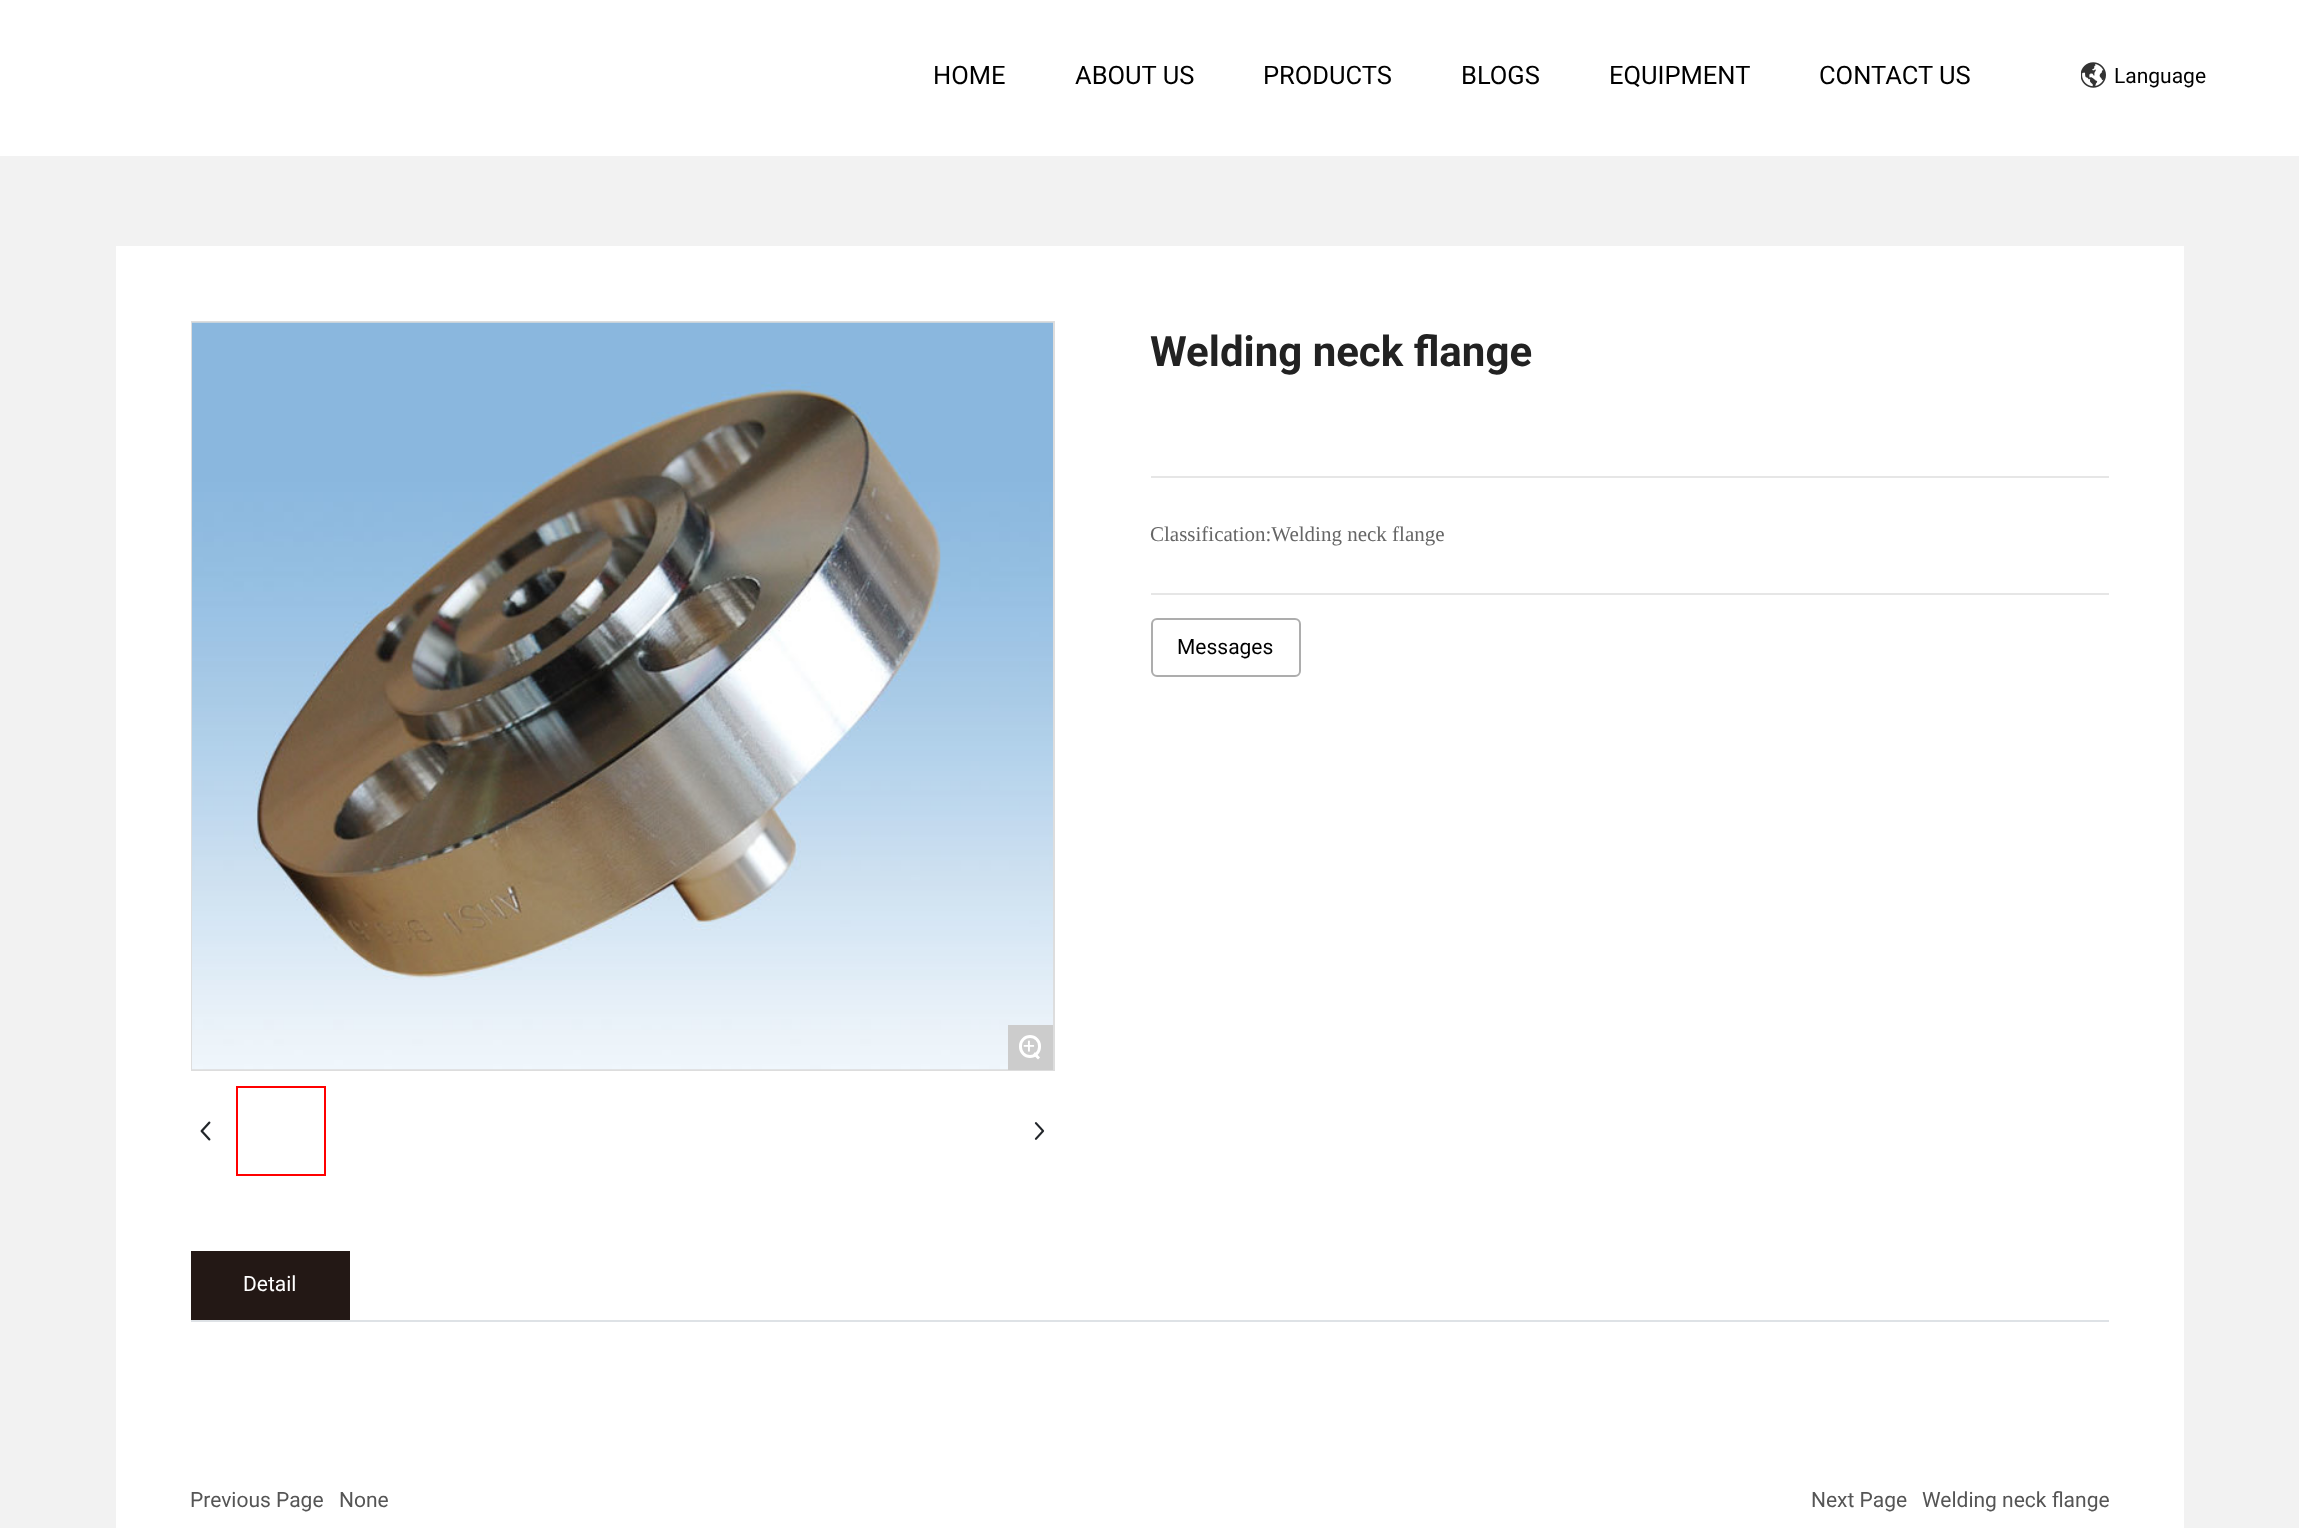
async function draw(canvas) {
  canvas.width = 2299;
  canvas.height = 1528;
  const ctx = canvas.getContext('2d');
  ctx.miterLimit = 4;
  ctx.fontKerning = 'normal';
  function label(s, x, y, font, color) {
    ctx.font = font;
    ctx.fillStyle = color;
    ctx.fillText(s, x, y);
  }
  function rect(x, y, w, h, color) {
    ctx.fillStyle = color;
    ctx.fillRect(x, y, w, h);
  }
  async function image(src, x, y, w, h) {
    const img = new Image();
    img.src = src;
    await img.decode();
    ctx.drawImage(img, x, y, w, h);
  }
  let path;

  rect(0, 0, 2299, 1528, '#fff');
  label('HOME', 933, 84, '25.5px Roboto', '#000');
  label('ABOUT US', 1075, 84, '25.5px Roboto', '#000');
  label('PRODUCTS', 1263, 84, '25.5px Roboto', '#000');
  label('BLOGS', 1461, 84, '25.5px Roboto', '#000');
  label('EQUIPMENT', 1609, 84, '25.5px Roboto', '#000');
  label('CONTACT US', 1819, 84, '25.5px Roboto', '#000');
  await image('assets/img1.png', 2081, 62, 25, 26);
  label('Language', 2114, 83, '21px Roboto', '#000');
  rect(0, 156, 2299, 1372, '#f2f2f2');
  rect(116, 246, 2068, 1282, '#fff');
  label('Welding neck flange', 1150, 366, 'bold 42px Roboto', '#222');
  rect(1151, 476, 958, 2, '#e6e6e6');
  label('Classification:Welding neck flange', 1150, 541, '21px Liberation Serif', '#666');
  rect(1151, 593, 958, 2, '#e6e6e6');
  ctx.beginPath();
  ctx.roundRect(1152, 619, 148, 57, 5);
  ctx.strokeStyle = '#adadad';
  ctx.lineWidth = 2;
  ctx.stroke();
  label('Messages', 1177, 654, '21px Roboto', '#000');
  ctx.strokeStyle = '#ddd';
  ctx.strokeRect(192, 322, 862, 748);
  await image('assets/img2.png', 192, 322, 861, 748);
  rect(1008, 1025, 45, 45, '#ccc');
  ctx.beginPath();
  ctx.roundRect(1020.5, 1036.5, 19, 20, 9.5);
  ctx.strokeStyle = '#fff';
  ctx.lineWidth = 3;
  ctx.stroke();
  label('+', 1023, 1053, '21px Roboto', '#fff');
  path = new Path2D('M1035 1052L1040 1057.5L1038 1059.5L1033 1054.5Z');
  ctx.fill(path);
  ctx.strokeStyle = '#f00';
  ctx.lineWidth = 2;
  ctx.strokeRect(237, 1087, 88, 88);
  await image('assets/img3.png', 200, 1121, 11, 20);
  await image('assets/img4.png', 1034, 1122, 11, 18);
  rect(191, 1320, 1918, 2, '#dee2e6');
  rect(191, 1251, 159, 69, '#231815');
  label('Detail', 243, 1291, '21px Roboto', '#fff');
  label('Previous Page', 190, 1507, '21px Roboto', '#555');
  label('None', 339, 1507, '21px Roboto', '#555');
  label('Next Page', 1811, 1507, '21px Roboto', '#555');
  label('Welding neck flange', 1922, 1507, '21px Roboto', '#555');
}

draw(document.querySelector('canvas'));
